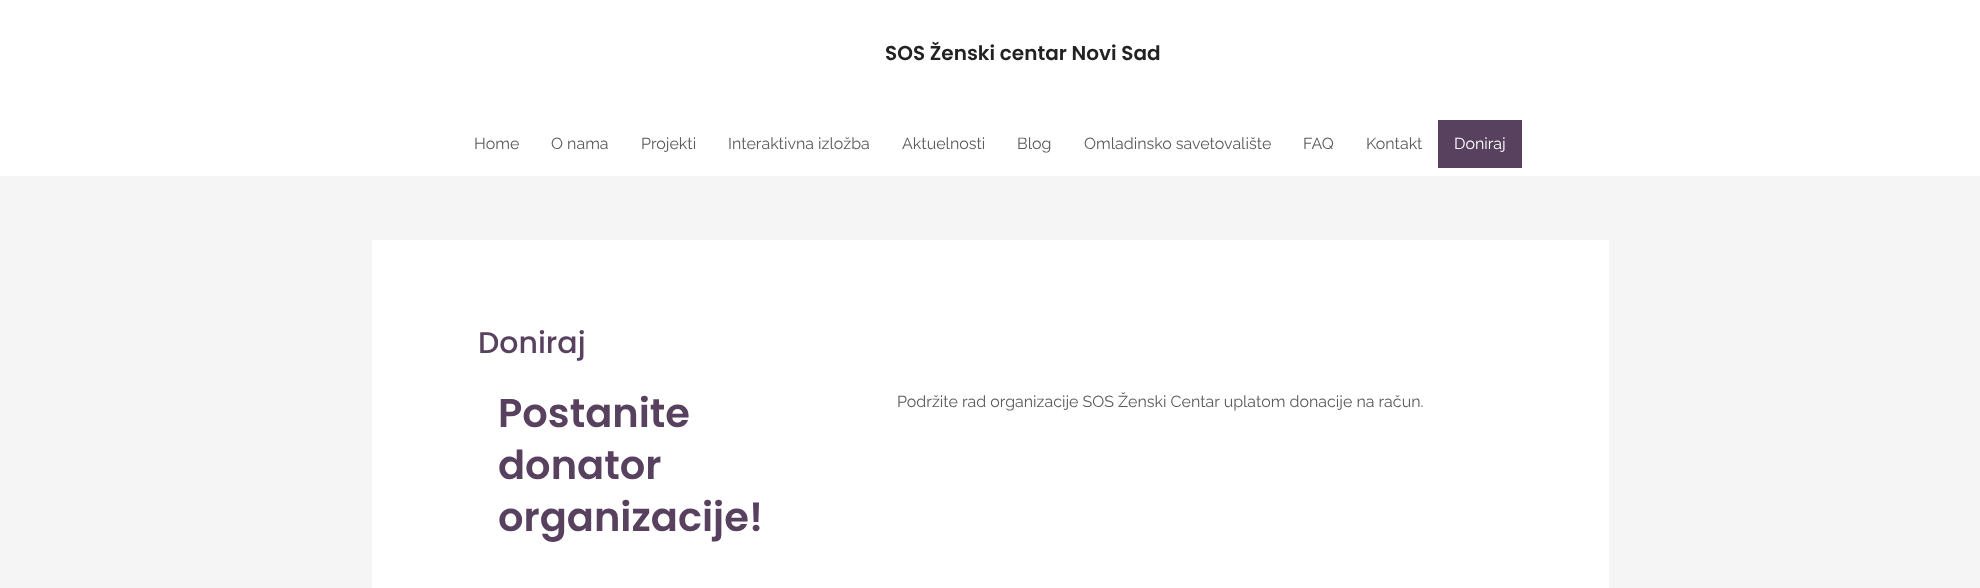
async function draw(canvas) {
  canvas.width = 1980;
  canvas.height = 588;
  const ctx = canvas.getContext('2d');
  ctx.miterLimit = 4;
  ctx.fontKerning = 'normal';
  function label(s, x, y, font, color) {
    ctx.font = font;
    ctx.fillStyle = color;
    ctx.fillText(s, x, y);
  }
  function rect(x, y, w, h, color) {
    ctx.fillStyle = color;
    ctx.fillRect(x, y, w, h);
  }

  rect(0, 0, 1980, 588, '#f5f5f5');
  rect(0, 0, 1980, 176, '#fff');
  label('SOS Ženski centar Novi Sad', 885, 60, '600 20px Poppins', '#222');
  label('Home', 474, 149, '100 16px Raleway', '#5a5a5a');
  label('O nama', 551, 149, '100 16px Raleway', '#5a5a5a');
  label('Projekti', 641, 149, '100 16px Raleway', '#5a5a5a');
  label('Interaktivna izložba', 728, 149, '100 16px Raleway', '#5a5a5a');
  label('Aktuelnosti', 902, 149, '100 16px Raleway', '#5a5a5a');
  label('Blog', 1017, 149, '100 16px Raleway', '#5a5a5a');
  label('Omladinsko savetovalište', 1084, 149, '100 16px Raleway', '#5a5a5a');
  label('FAQ', 1303, 149, '100 16px Raleway', '#5a5a5a');
  label('Kontakt', 1366, 149, '100 16px Raleway', '#5a5a5a');
  rect(1438, 120, 84, 48, '#57415f');
  label('Doniraj', 1454, 149, '100 16px Raleway', '#fff');
  rect(372, 240, 1237, 348, '#fff');
  label('Doniraj', 478, 353, '500 30px Poppins', '#57415f');
  label('Postanite', 498, 427, '600 40px Poppins', '#57415f');
  label('donator', 498, 479, '600 40px Poppins', '#57415f');
  label('organizacije!', 498, 531, '600 40px Poppins', '#57415f');
  label('Podržite rad organizacije SOS Ženski Centar uplatom donacije na račun.', 897, 407, '100 16px Raleway', '#5a5a5a');
}

draw(document.querySelector('canvas'));
